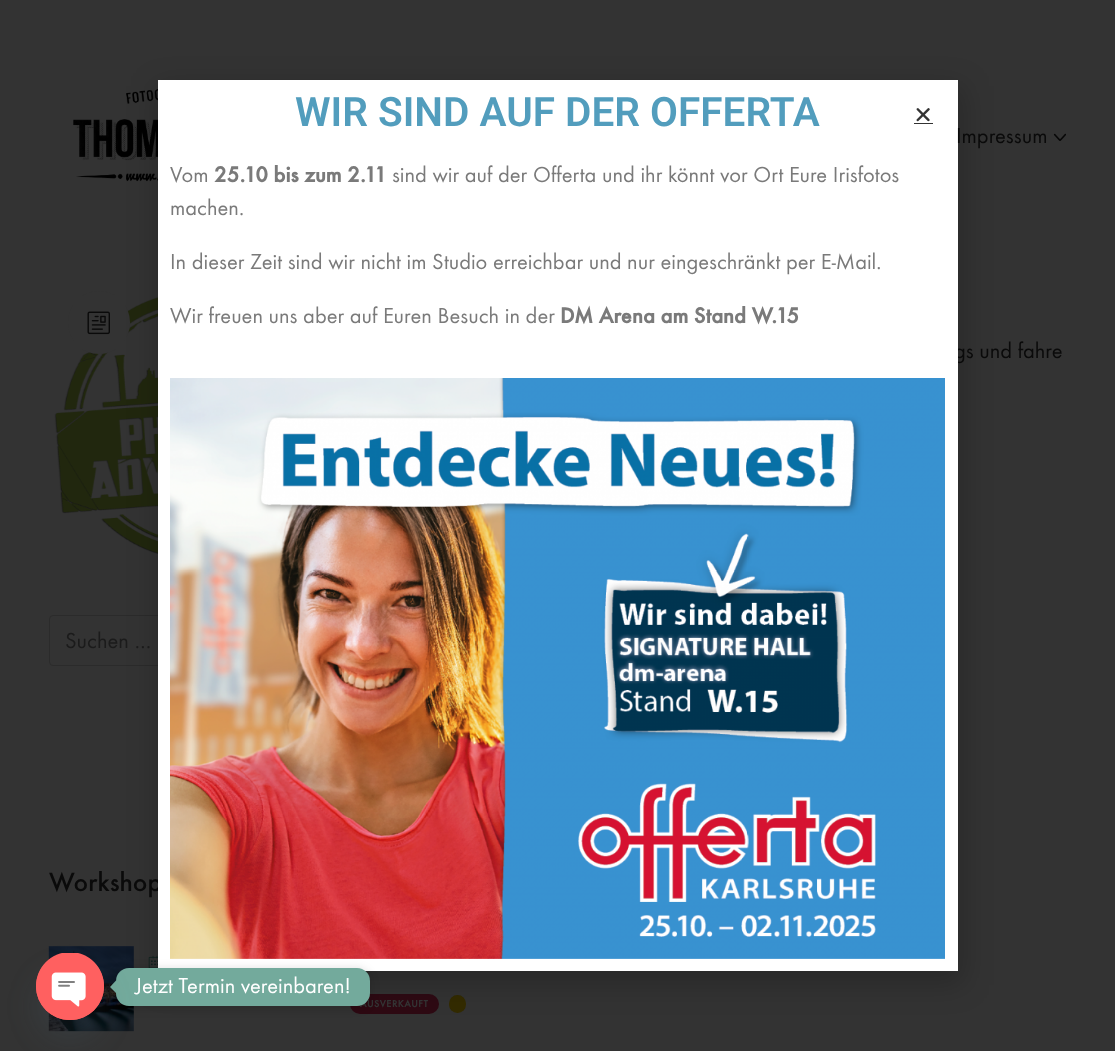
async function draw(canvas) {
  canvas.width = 1115;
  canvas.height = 1051;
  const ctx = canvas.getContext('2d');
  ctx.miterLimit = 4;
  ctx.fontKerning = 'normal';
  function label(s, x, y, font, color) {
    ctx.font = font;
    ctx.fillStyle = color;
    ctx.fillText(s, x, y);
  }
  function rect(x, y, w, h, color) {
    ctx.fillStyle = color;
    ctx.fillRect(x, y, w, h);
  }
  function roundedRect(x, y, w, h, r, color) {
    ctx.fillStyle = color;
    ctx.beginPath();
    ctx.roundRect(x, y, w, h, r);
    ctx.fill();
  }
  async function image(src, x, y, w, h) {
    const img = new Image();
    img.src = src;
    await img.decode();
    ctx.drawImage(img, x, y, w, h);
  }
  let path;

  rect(0, 0, 1115, 1051, '#333');
  await image('assets/img3.png', 73, 89, 85, 93);
  await image('assets/img6.png', 54, 297, 104, 257);
  roundedRect(68, 291, 62, 63, 31, '#333');
  ctx.beginPath();
  ctx.roundRect(49.5, 615.5, 271, 50, 3.5);
  ctx.strokeStyle = '#2b2b2b';
  ctx.stroke();
  await image('assets/img7.png', 48, 946, 86, 86);
  await image('assets/img8.png', 148, 955, 10, 13);
  roundedRect(350, 994, 89, 20, 10, '#2e0a13');
  roundedRect(449, 995, 17, 18, 8.5, '#332b00');
  ctx.fillStyle = '#00000033';
  ctx.filter = 'blur(14.5px)';
  ctx.beginPath();
  ctx.rect(156, 86, 808, 899);
  ctx.fill();
  ctx.filter = 'none';
  label('gs und fahre', 954, 358, '22.5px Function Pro', '#0a0a0a');
  label('Workshop', 49, 891, '500 27.5px Function Pro', '#0a0a0a');
  rect(158, 80, 800, 891, '#fff');
  label('WIR SIND AUF DER OFFERTA', 295, 126, '600 40.5px Roboto', '#529dbd');
  label('Vom', 170, 182, '22.5px Function Pro', '#7a7a7a');
  label('25.10 bis zum 2.11', 214, 182, 'bold 22.5px Function Pro', '#7a7a7a');
  label('sind wir auf der Offerta und ihr könnt vor Ort Eure Irisfotos', 392, 182, '22.5px Function Pro', '#7a7a7a');
  label('machen.', 170, 215, '22.5px Function Pro', '#7a7a7a');
  label('In dieser Zeit sind wir nicht im Studio erreichbar und nur eingeschränkt per E-Mail.', 170, 269, '22.5px Function Pro', '#7a7a7a');
  label('Wir freuen uns aber auf Euren Besuch in der', 170, 323, '22.5px Function Pro', '#7a7a7a');
  label('DM Arena am Stand W.15', 560, 323, 'bold 22.5px Function Pro', '#7a7a7a');
  await image('assets/img1.png', 170, 378, 775, 581);
  await image('assets/img2.png', 916, 108, 14, 14);
  rect(914, 123, 19, 1, '#333');
  label('Impressum', 956, 143, '22.5px Function Pro', '#0a0a0a');
  await image('assets/img4.png', 1053, 133, 13, 8);
  await image('assets/img5.png', 87, 311, 23, 24);
  label('Suchen …', 65, 648, '22.5px Function Pro', '#1b1b1b');
  ctx.letterSpacing = '0.6px';
  label('AUSVERKAUFT', 360, 1007, 'bold 10px Function Pro', '#333');
  ctx.fillStyle = '#00000026';
  ctx.filter = 'blur(5px)';
  ctx.beginPath();
  ctx.roundRect(116, 969, 254, 39, 13);
  ctx.fill();
  ctx.filter = 'none';
  roundedRect(116, 968, 254, 38, 13, '#73aa9c');
  path = new Path2D('M116 980.5V993L110 987Z');
  ctx.fill(path);
  ctx.fillStyle = '#49687e29';
  ctx.filter = 'blur(15px)';
  ctx.beginPath();
  ctx.roundRect(36, 973, 68, 67, 33.5);
  ctx.fill();
  ctx.filter = 'none';
  roundedRect(36, 953, 68, 67, 33.5, '#ff6060');
  await image('assets/img9.png', 36, 953, 68, 67);
  ctx.letterSpacing = '0px';
  label('Jetzt Termin vereinbaren!', 135, 993, '22.5px Function Pro', '#fff');
}

draw(document.querySelector('canvas'));
